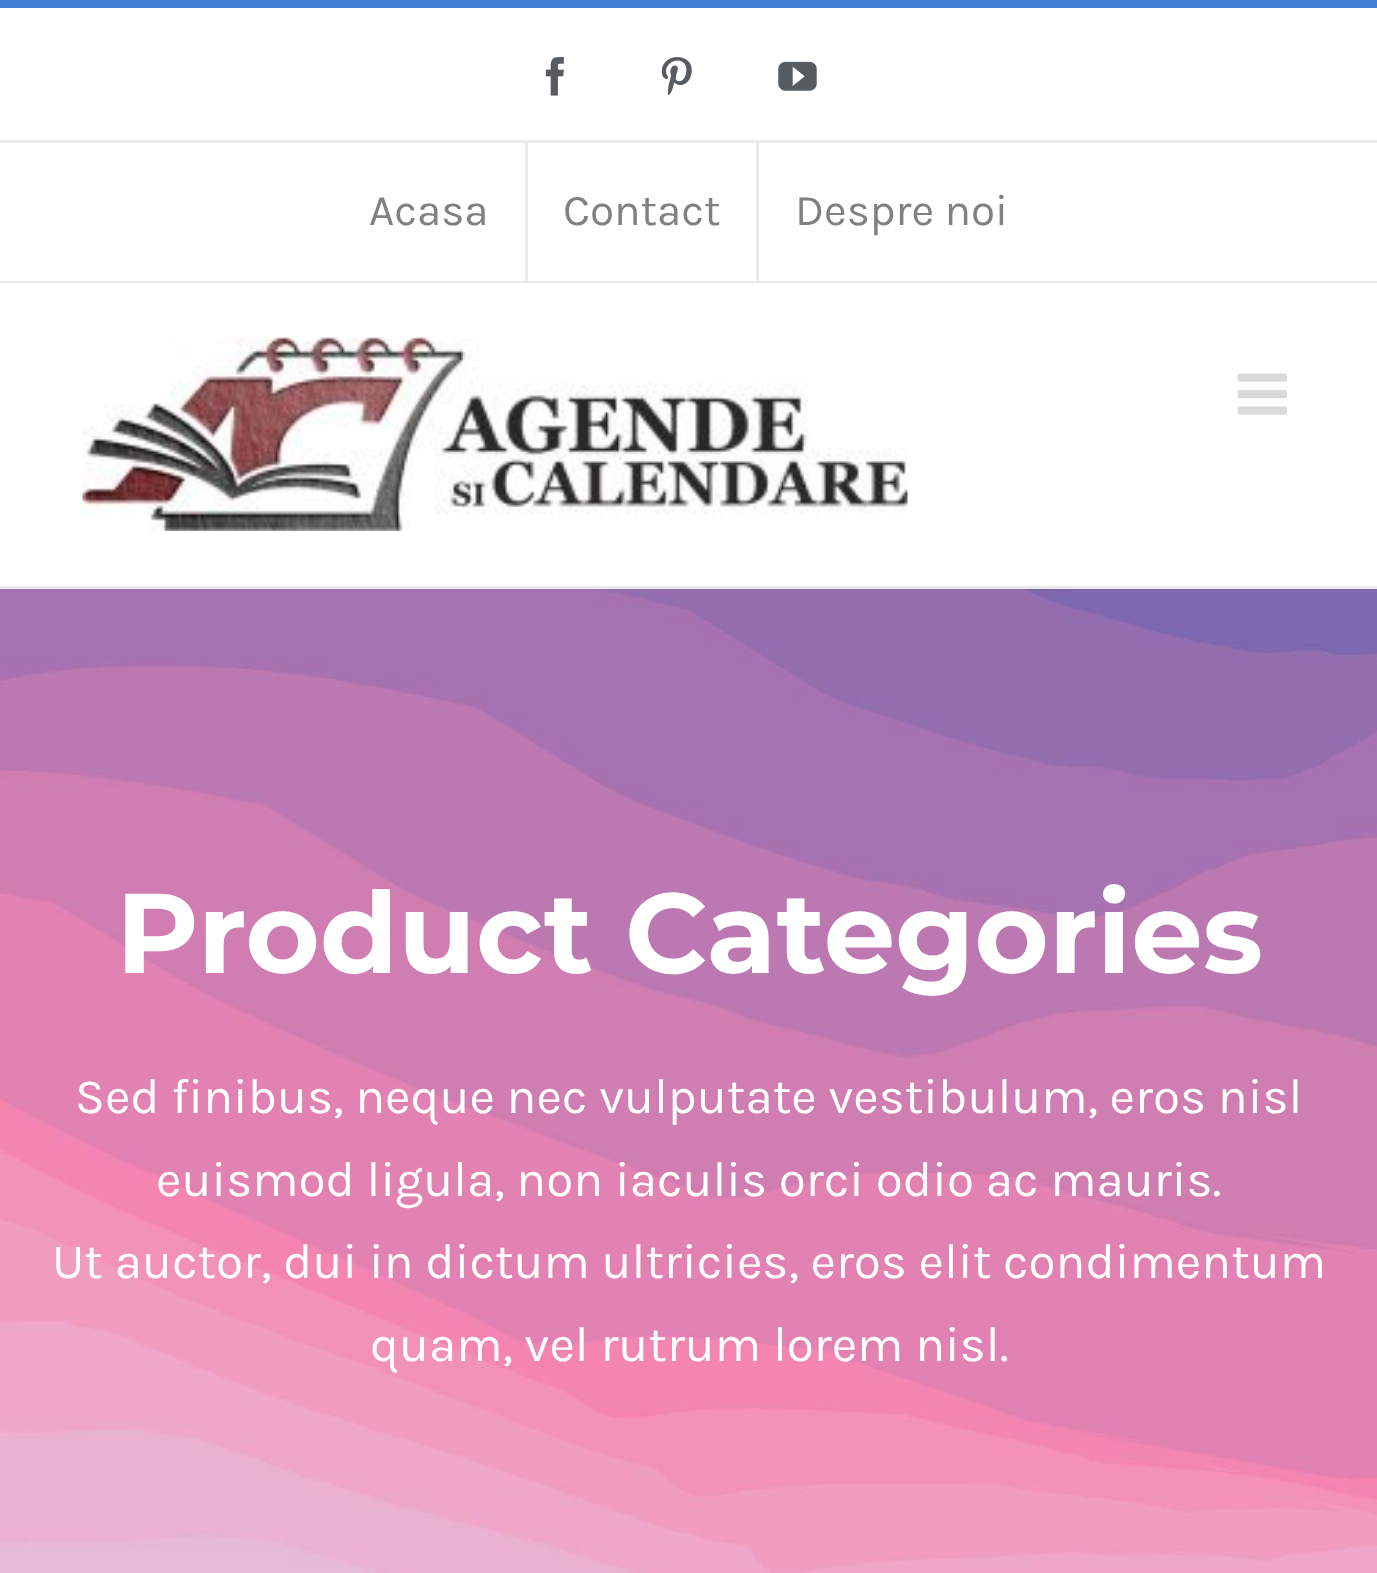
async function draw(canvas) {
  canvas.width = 1377;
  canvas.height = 1573;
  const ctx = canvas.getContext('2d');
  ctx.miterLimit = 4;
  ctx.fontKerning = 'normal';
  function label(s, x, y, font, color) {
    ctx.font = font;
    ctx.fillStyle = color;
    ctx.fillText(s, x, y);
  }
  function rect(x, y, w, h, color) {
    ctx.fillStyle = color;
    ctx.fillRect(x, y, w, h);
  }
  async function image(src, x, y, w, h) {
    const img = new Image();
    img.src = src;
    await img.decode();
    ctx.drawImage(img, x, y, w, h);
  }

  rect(0, 0, 1377, 1573, '#fff');
  rect(0, 0, 1377, 8, '#427ed1');
  rect(0, 281, 1377, 2, '#eaeaea');
  rect(0, 140, 1377, 3, '#eaeaea');
  await image('assets/img1.png', 545, 57, 19, 39);
  await image('assets/img2.png', 661, 57, 31, 39);
  await image('assets/img3.png', 778, 61, 39, 30);
  label('Acasa', 369, 225, '44px Karla', '#808080');
  rect(525, 143, 3, 138, '#eaeaea');
  label('Contact', 563, 225, '44px Karla', '#808080');
  rect(756, 143, 3, 138, '#eaeaea');
  label('Despre noi', 795, 225, '44px Karla', '#808080');
  rect(0, 586, 1377, 3, '#eaeaea');
  await image('assets/img4.png', 82, 337, 826, 194);
  await image('assets/img5.png', 1237, 373, 50, 42);
  await image('assets/img6.png', 0, 589, 1377, 984);
  label('Product Categories', 116, 973, 'bold 113.25px Montserrat', '#fff');
  label('Sed finibus, neque nec vulputate vestibulum, eros nisl', 75, 1113, '49.5px Karla', '#fff');
  label('euismod ligula, non iaculis orci odio ac mauris.', 156, 1196, '49.5px Karla', '#fff');
  label('Ut auctor, dui in dictum ultricies, eros elit condimentum', 52, 1278, '49.5px Karla', '#fff');
  label('quam, vel rutrum lorem nisl.', 370, 1361, '49.5px Karla', '#fff');
}

draw(document.querySelector('canvas'));
